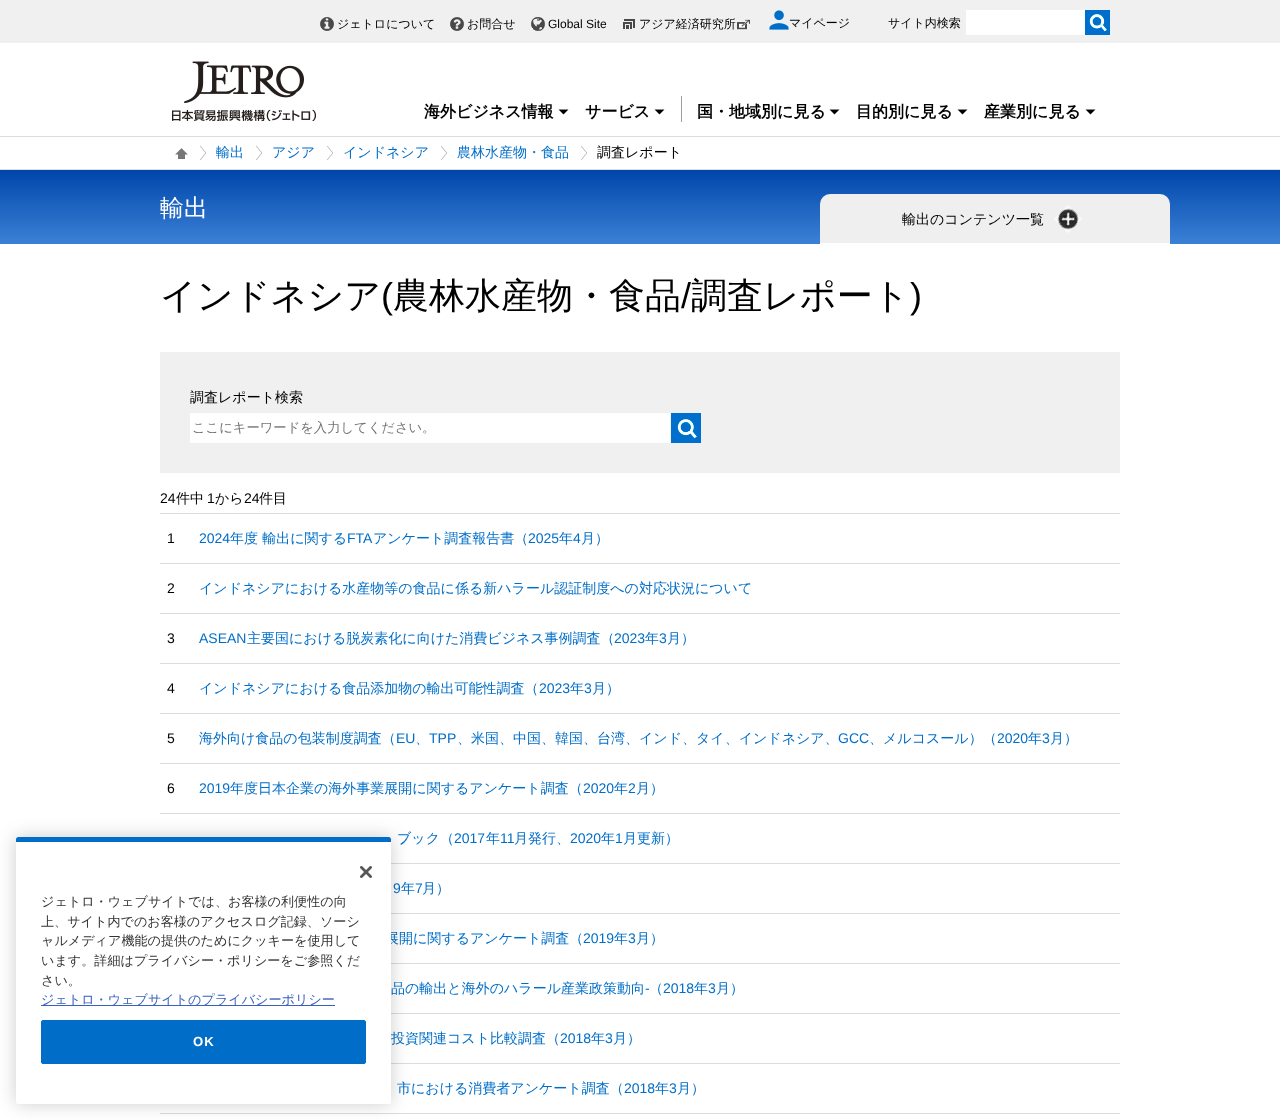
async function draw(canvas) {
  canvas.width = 1280;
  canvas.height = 1120;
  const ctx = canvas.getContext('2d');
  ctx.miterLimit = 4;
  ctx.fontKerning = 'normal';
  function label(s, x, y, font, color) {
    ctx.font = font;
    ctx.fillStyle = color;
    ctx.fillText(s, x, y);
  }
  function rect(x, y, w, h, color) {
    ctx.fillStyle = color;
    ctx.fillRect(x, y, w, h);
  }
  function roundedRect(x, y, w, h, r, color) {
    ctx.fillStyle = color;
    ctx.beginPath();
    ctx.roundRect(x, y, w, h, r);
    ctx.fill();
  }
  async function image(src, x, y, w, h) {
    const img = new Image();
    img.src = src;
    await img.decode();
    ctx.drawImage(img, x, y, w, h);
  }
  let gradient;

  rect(0, 0, 1280, 1120, '#fff');
  rect(0, 0, 1280, 43, '#f0f0f0');
  await image('assets/img1.png', 320, 17, 14, 14);
  label('ジェトロについて', 337, 28, '500 12px WenQuanYi Zen Hei', '#000');
  await image('assets/img2.png', 450, 17, 14, 14);
  label('お問合せ', 467, 28, '500 12px WenQuanYi Zen Hei', '#000');
  await image('assets/img3.png', 531, 17, 14, 14);
  label('Global Site', 548, 28, '12px Liberation Sans', '#000');
  await image('assets/img4.png', 623, 19, 12, 10);
  label('アジア経済研究所', 639, 28, '500 12px WenQuanYi Zen Hei', '#000');
  await image('assets/img5.png', 737, 19, 13, 11);
  await image('assets/img6.png', 769, 10, 20, 20);
  label('マイページ', 789, 27, '500 12px WenQuanYi Zen Hei', '#000');
  label('サイト内検索', 888, 27, '500 12px WenQuanYi Zen Hei', '#000');
  rect(966, 10, 119, 25, '#fff');
  await image('assets/img7.png', 1085, 10, 25, 25);
  await image('assets/img8.png', 172, 61, 144, 60);
  label('海外ビジネス情報', 424, 117, 'bold 16px WenQuanYi Zen Hei', '#000');
  await image('assets/img9.png', 558, 109, 11, 6);
  rect(681, 96, 1, 26, '#9f9f9f');
  label('サービス', 585, 117, 'bold 16px WenQuanYi Zen Hei', '#000');
  await image('assets/img9.png', 654, 109, 11, 6);
  label('国・地域別に見る', 697, 117, 'bold 16px WenQuanYi Zen Hei', '#000');
  await image('assets/img9.png', 829, 109, 11, 6);
  label('目的別に見る', 856, 117, 'bold 16px WenQuanYi Zen Hei', '#000');
  await image('assets/img9.png', 957, 109, 11, 6);
  label('産業別に見る', 984, 117, 'bold 16px WenQuanYi Zen Hei', '#000');
  await image('assets/img9.png', 1085, 109, 11, 6);
  rect(0, 136, 1280, 1, '#dcdcdc');
  rect(0, 169, 1280, 1, '#dcdcdc');
  await image('assets/img10.png', 200, 146, 6, 14);
  await image('assets/img11.png', 175, 148, 13, 11);
  await image('assets/img10.png', 256, 146, 6, 14);
  label('輸出', 216, 157, '500 14px WenQuanYi Zen Hei', '#006ec8');
  await image('assets/img10.png', 327, 146, 6, 14);
  label('アジア', 272, 157, '500 14px WenQuanYi Zen Hei', '#006ec8');
  await image('assets/img10.png', 441, 146, 6, 14);
  label('インドネシア', 343, 157, '500 14px WenQuanYi Zen Hei', '#006ec8');
  await image('assets/img10.png', 581, 146, 6, 14);
  label('農林水産物・食品', 457, 157, '500 14px WenQuanYi Zen Hei', '#006ec8');
  label('調査レポート', 597, 157, '500 14px WenQuanYi Zen Hei', '#000');
  gradient = ctx.createLinearGradient(640, 170, 640, 244);
  gradient.addColorStop(0, '#0046aa');
  gradient.addColorStop(1, '#3b81d6');
  ctx.fillStyle = gradient;
  ctx.fillRect(0, 170, 1280, 74);
  label('輸出', 160, 216, '500 24px WenQuanYi Zen Hei', '#fff');
  ctx.fillStyle = '#f0eff0';
  ctx.beginPath();
  ctx.roundRect(820, 194, 350, 50, [10, 10, 0, 0]);
  ctx.fill();
  rect(820, 243, 350, 1, '#fff');
  label('輸出のコンテンツ一覧', 902, 224, '500 14px WenQuanYi Zen Hei', '#000');
  await image('assets/img12.png', 1054, 205, 28, 28);
  label('インドネシア', 160, 308, '500 36px WenQuanYi Zen Hei', '#000');
  label('(', 381, 308, '36px Liberation Sans', '#000');
  label('農林水産物・食品', 393, 308, '500 36px WenQuanYi Zen Hei', '#000');
  label('/', 681, 308, '36px Liberation Sans', '#000');
  label('調査レポート', 691, 308, '500 36px WenQuanYi Zen Hei', '#000');
  label(')', 910, 308, '36px Liberation Sans', '#000');
  rect(160, 352, 960, 121, '#f0f0f0');
  label('調査レポート検索', 190, 402, '500 14px WenQuanYi Zen Hei', '#000');
  rect(190, 413, 480, 30, '#fff');
  label('ここにキーワードを入力してください。', 192, 432, '500 13.3px WenQuanYi Zen Hei', '#757575');
  await image('assets/img13.png', 671, 413, 30, 30);
  label('24', 160, 503, '14px Liberation Sans', '#000');
  label('件中', 176, 503, '500 14px WenQuanYi Zen Hei', '#000');
  label('1', 207, 503, '14px Liberation Sans', '#000');
  label('から', 215, 503, '500 14px WenQuanYi Zen Hei', '#000');
  label('24', 244, 503, '14px Liberation Sans', '#000');
  label('件目', 259, 503, '500 14px WenQuanYi Zen Hei', '#000');
  rect(160, 513, 960, 1, '#dcdcdc');
  rect(160, 563, 960, 1, '#dcdcdc');
  label('1', 167, 543, '14px Liberation Sans', '#000');
  label('2024', 199, 543, '14px Liberation Sans', '#006ec8');
  label('年度 輸出に関する', 230, 543, '500 14px WenQuanYi Zen Hei', '#006ec8');
  label('FTA', 347, 543, '14px Liberation Sans', '#006ec8');
  label('アンケート調査報告書（', 373, 543, '500 14px WenQuanYi Zen Hei', '#006ec8');
  label('2025', 528, 543, '14px Liberation Sans', '#006ec8');
  label('年', 559, 543, '500 14px WenQuanYi Zen Hei', '#006ec8');
  label('4', 573, 543, '14px Liberation Sans', '#006ec8');
  label('月）', 581, 543, '500 14px WenQuanYi Zen Hei', '#006ec8');
  rect(160, 613, 960, 1, '#dcdcdc');
  label('2', 167, 593, '14px Liberation Sans', '#000');
  label('インドネシアにおける水産物等の食品に係る新ハラール認証制度への対応状況について', 199, 593, '500 14px WenQuanYi Zen Hei', '#006ec8');
  rect(160, 663, 960, 1, '#dcdcdc');
  label('3', 167, 643, '14px Liberation Sans', '#000');
  label('ASEAN', 199, 643, '14px Liberation Sans', '#006ec8');
  label('主要国における脱炭素化に向けた消費ビジネス事例調査（', 247, 643, '500 14px WenQuanYi Zen Hei', '#006ec8');
  label('2023', 614, 643, '14px Liberation Sans', '#006ec8');
  label('年', 645, 643, '500 14px WenQuanYi Zen Hei', '#006ec8');
  label('3', 659, 643, '14px Liberation Sans', '#006ec8');
  label('月）', 667, 643, '500 14px WenQuanYi Zen Hei', '#006ec8');
  rect(160, 713, 960, 1, '#dcdcdc');
  label('4', 167, 693, '14px Liberation Sans', '#000');
  label('インドネシアにおける食品添加物の輸出可能性調査（', 199, 693, '500 14px WenQuanYi Zen Hei', '#006ec8');
  label('2023', 539, 693, '14px Liberation Sans', '#006ec8');
  label('年', 570, 693, '500 14px WenQuanYi Zen Hei', '#006ec8');
  label('3', 584, 693, '14px Liberation Sans', '#006ec8');
  label('月）', 592, 693, '500 14px WenQuanYi Zen Hei', '#006ec8');
  rect(160, 763, 960, 1, '#dcdcdc');
  label('5', 167, 743, '14px Liberation Sans', '#000');
  label('海外向け食品の包装制度調査（', 199, 743, '500 14px WenQuanYi Zen Hei', '#006ec8');
  label('EU', 396, 743, '14px Liberation Sans', '#006ec8');
  label('、', 415, 743, '500 14px WenQuanYi Zen Hei', '#006ec8');
  label('TPP', 429, 743, '14px Liberation Sans', '#006ec8');
  label('、米国、中国、韓国、台湾、インド、タイ、インドネシア、', 457, 743, '500 14px WenQuanYi Zen Hei', '#006ec8');
  label('GCC', 838, 743, '14px Liberation Sans', '#006ec8');
  label('、メルコスール）（', 869, 743, '500 14px WenQuanYi Zen Hei', '#006ec8');
  label('2020', 997, 743, '14px Liberation Sans', '#006ec8');
  label('年', 1028, 743, '500 14px WenQuanYi Zen Hei', '#006ec8');
  label('3', 1042, 743, '14px Liberation Sans', '#006ec8');
  label('月）', 1050, 743, '500 14px WenQuanYi Zen Hei', '#006ec8');
  rect(160, 813, 960, 1, '#dcdcdc');
  label('6', 167, 793, '14px Liberation Sans', '#000');
  label('2019', 199, 793, '14px Liberation Sans', '#006ec8');
  label('年度日本企業の海外事業展開に関するアンケート調査（', 230, 793, '500 14px WenQuanYi Zen Hei', '#006ec8');
  label('2020', 583, 793, '14px Liberation Sans', '#006ec8');
  label('年', 614, 793, '500 14px WenQuanYi Zen Hei', '#006ec8');
  label('2', 628, 793, '14px Liberation Sans', '#006ec8');
  label('月）', 636, 793, '500 14px WenQuanYi Zen Hei', '#006ec8');
  rect(391, 863, 729, 1, '#dcdcdc');
  label('ブック（', 397, 843, '500 14px WenQuanYi Zen Hei', '#006ec8');
  label('2017', 454, 843, '14px Liberation Sans', '#006ec8');
  label('年', 486, 843, '500 14px WenQuanYi Zen Hei', '#006ec8');
  label('11', 500, 843, '14px Liberation Sans', '#006ec8');
  label('月発行、', 514, 843, '500 14px WenQuanYi Zen Hei', '#006ec8');
  label('2020', 570, 843, '14px Liberation Sans', '#006ec8');
  label('年', 601, 843, '500 14px WenQuanYi Zen Hei', '#006ec8');
  label('1', 615, 843, '14px Liberation Sans', '#006ec8');
  label('月更新）', 623, 843, '500 14px WenQuanYi Zen Hei', '#006ec8');
  rect(391, 913, 729, 1, '#dcdcdc');
  label('9', 393, 893, '14px Liberation Sans', '#006ec8');
  label('年', 401, 893, '500 14px WenQuanYi Zen Hei', '#006ec8');
  label('7', 415, 893, '14px Liberation Sans', '#006ec8');
  label('月）', 422, 893, '500 14px WenQuanYi Zen Hei', '#006ec8');
  rect(391, 963, 729, 1, '#dcdcdc');
  label('展開に関するアンケート調査（', 385, 943, '500 14px WenQuanYi Zen Hei', '#006ec8');
  label('2019', 583, 943, '14px Liberation Sans', '#006ec8');
  label('年', 614, 943, '500 14px WenQuanYi Zen Hei', '#006ec8');
  label('3', 628, 943, '14px Liberation Sans', '#006ec8');
  label('月）', 636, 943, '500 14px WenQuanYi Zen Hei', '#006ec8');
  rect(391, 1013, 729, 1, '#dcdcdc');
  label('品の輸出と海外のハラール産業政策動向', 391, 993, '500 14px WenQuanYi Zen Hei', '#006ec8');
  label('‐', 645, 993, '14px Liberation Sans', '#006ec8');
  label('（', 649, 993, '500 14px WenQuanYi Zen Hei', '#006ec8');
  label('2018', 663, 993, '14px Liberation Sans', '#006ec8');
  label('年', 694, 993, '500 14px WenQuanYi Zen Hei', '#006ec8');
  label('3', 708, 993, '14px Liberation Sans', '#006ec8');
  label('月）', 716, 993, '500 14px WenQuanYi Zen Hei', '#006ec8');
  rect(391, 1063, 729, 1, '#dcdcdc');
  label('投資関連コスト比較調査（', 391, 1043, '500 14px WenQuanYi Zen Hei', '#006ec8');
  label('2018', 560, 1043, '14px Liberation Sans', '#006ec8');
  label('年', 591, 1043, '500 14px WenQuanYi Zen Hei', '#006ec8');
  label('3', 605, 1043, '14px Liberation Sans', '#006ec8');
  label('月）', 613, 1043, '500 14px WenQuanYi Zen Hei', '#006ec8');
  rect(160, 1113, 960, 1, '#dcdcdc');
  label('市における消費者アンケート調査（', 397, 1093, '500 14px WenQuanYi Zen Hei', '#006ec8');
  label('2018', 624, 1093, '14px Liberation Sans', '#006ec8');
  label('年', 655, 1093, '500 14px WenQuanYi Zen Hei', '#006ec8');
  label('3', 669, 1093, '14px Liberation Sans', '#006ec8');
  label('月）', 677, 1093, '500 14px WenQuanYi Zen Hei', '#006ec8');
  ctx.fillStyle = '#00000033';
  ctx.filter = 'blur(9px)';
  ctx.beginPath();
  ctx.roundRect(16, 837, 375, 267, 2.5);
  ctx.fill();
  ctx.filter = 'none';
  roundedRect(16, 837, 375, 267, 2.5, '#fff');
  ctx.fillStyle = '#006ec8';
  ctx.beginPath();
  ctx.roundRect(16, 837, 375, 5, [2.5, 2.5, 0, 0]);
  ctx.fill();
  await image('assets/img14.png', 360, 866, 12, 12);
  label('ジェトロ・ウェブサイトでは、お客様の利便性の向', 41, 906, '500 13.1px WenQuanYi Zen Hei', '#333');
  label('上、サイト内でのお客様のアクセスログ記録、ソーシ', 41, 926, '500 13.1px WenQuanYi Zen Hei', '#333');
  label('ャルメディア機能の提供のためにクッキーを使用して', 41, 945, '500 13.1px WenQuanYi Zen Hei', '#333');
  label('います。詳細はプライバシー・ポリシーをご参照くだ', 41, 965, '500 13.1px WenQuanYi Zen Hei', '#333');
  label('さい。', 41, 985, '500 13.1px WenQuanYi Zen Hei', '#333');
  rect(41, 1005, 294, 1, '#3860be');
  label('ジェトロ・ウェブサイトのプライバシーポリシー', 41, 1004, '500 13.1px WenQuanYi Zen Hei', '#3860be');
  ctx.fillStyle = '#006ec8';
  ctx.beginPath();
  ctx.roundRect(41.5, 1020.5, 324, 43, 1.5);
  ctx.fill();
  ctx.strokeStyle = '#006ec8';
  ctx.stroke();
  ctx.letterSpacing = '1px';
  label('OK', 193, 1046, 'bold 13.1px Liberation Sans', '#fff');
}

draw(document.querySelector('canvas'));
